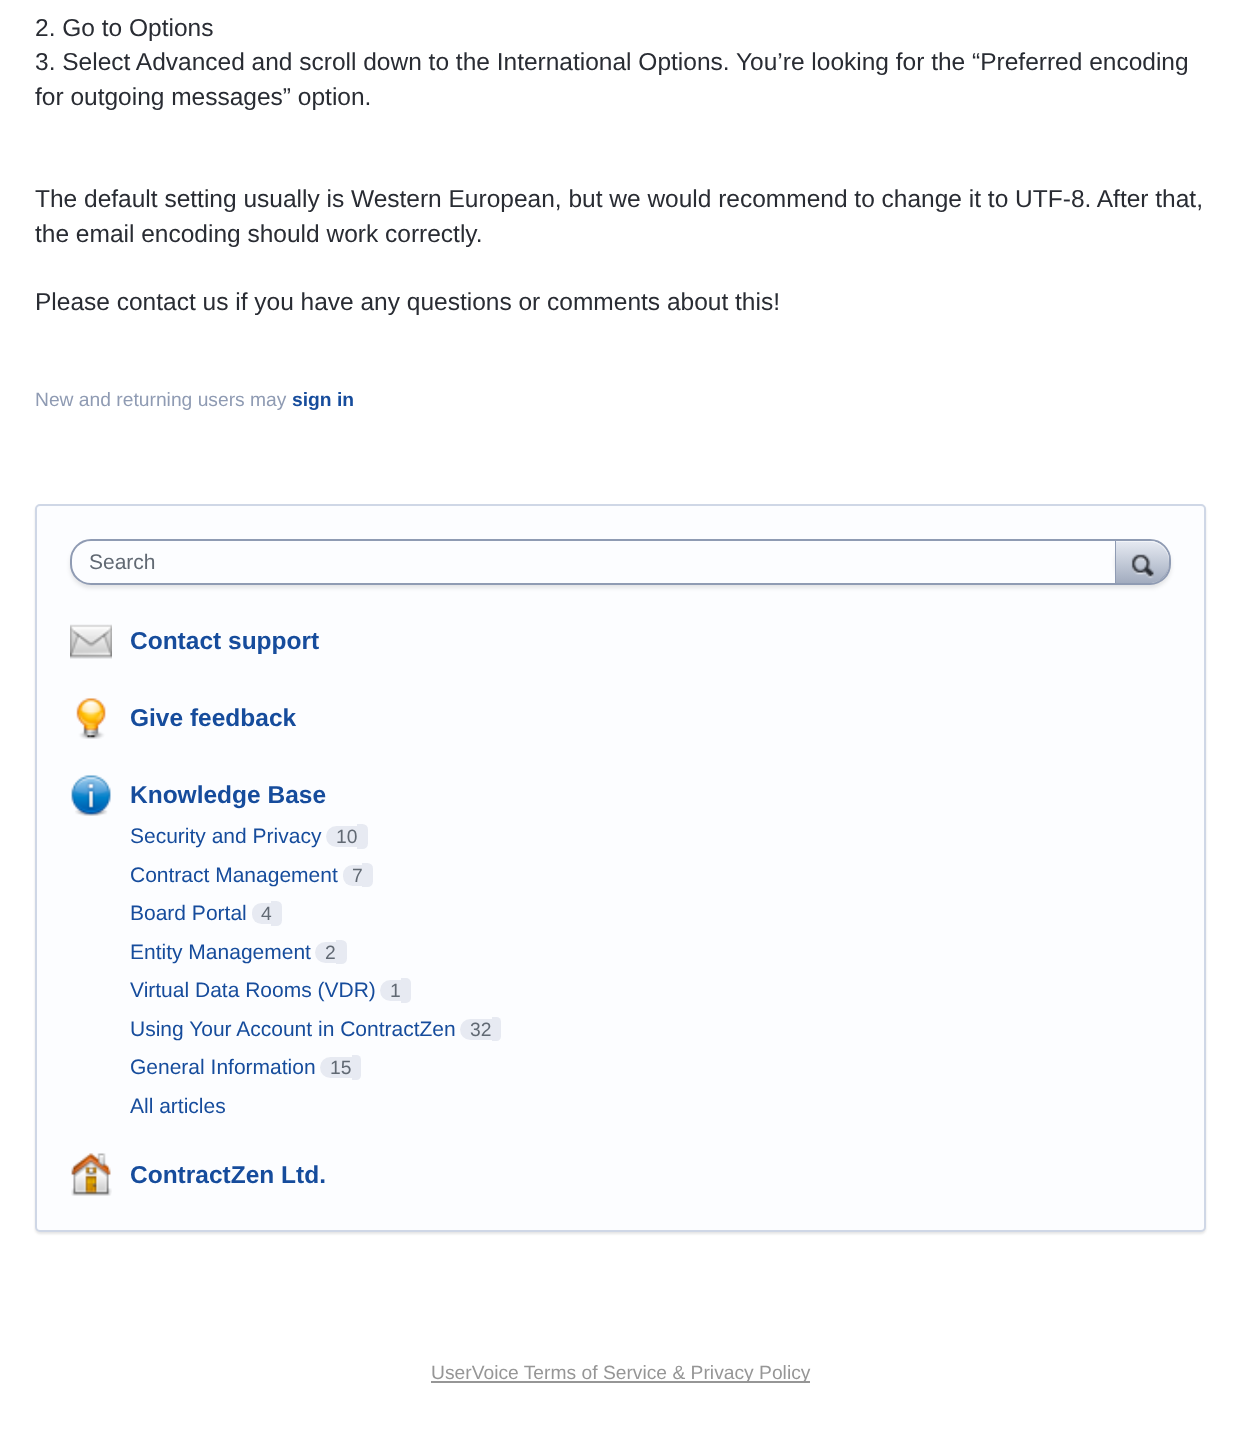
async function draw(canvas) {
  canvas.width = 1240;
  canvas.height = 1452;
  const ctx = canvas.getContext('2d');
  ctx.miterLimit = 4;
  ctx.fontKerning = 'normal';
  function label(s, x, y, font, color) {
    ctx.font = font;
    ctx.fillStyle = color;
    ctx.fillText(s, x, y);
  }
  function rect(x, y, w, h, color) {
    ctx.fillStyle = color;
    ctx.fillRect(x, y, w, h);
  }
  async function image(src, x, y, w, h) {
    const img = new Image();
    img.src = src;
    await img.decode();
    ctx.drawImage(img, x, y, w, h);
  }
  let gradient, path;

  rect(0, 0, 1240, 1452, '#fff');
  label('2. Go to Options', 35, 36, '24.5px Liberation Sans', '#292c33');
  label('3. Select Advanced and scroll down to the International Options. You’re looking for the “Preferred encoding', 35, 70, '24.5px Liberation Sans', '#292c33');
  label('for outgoing messages” option.', 35, 105, '24.5px Liberation Sans', '#292c33');
  label('The default setting usually is Western European, but we would recommend to change it to UTF-8. After that,', 35, 207, '24.5px Liberation Sans', '#292c33');
  label('the email encoding should work correctly.', 35, 242, '24.5px Liberation Sans', '#292c33');
  label('Please contact us if you have any questions or comments about this!', 35, 310, '24.5px Liberation Sans', '#292c33');
  label('New and returning users may', 35, 406, '19.25px Liberation Sans', '#8f9bb3');
  label('sign in', 292, 406, 'bold 19.25px Liberation Sans', '#164c9c');
  ctx.fillStyle = '#0000001a';
  ctx.filter = 'blur(1px)';
  ctx.beginPath();
  ctx.roundRect(35, 506, 1171, 728, 5);
  ctx.fill();
  ctx.filter = 'none';
  ctx.fillStyle = '#fcfdff';
  ctx.beginPath();
  ctx.roundRect(36, 505, 1169, 726, 4);
  ctx.fill();
  ctx.strokeStyle = '#cfd7e6';
  ctx.lineWidth = 2;
  ctx.stroke();
  ctx.fillStyle = '#0000001a';
  ctx.filter = 'blur(2px)';
  ctx.beginPath();
  ctx.roundRect(70, 543, 1101, 45, 21);
  ctx.fill();
  ctx.filter = 'none';
  ctx.fillStyle = '#fcfdff';
  ctx.beginPath();
  ctx.roundRect(71, 540, 1099, 44, 20);
  ctx.fill();
  ctx.strokeStyle = '#8f9bb3';
  ctx.stroke();
  label('Search', 89, 569, '21px Liberation Sans', '#616973');
  ctx.save();
  ctx.beginPath();
  ctx.roundRect(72, 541, 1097, 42, 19);
  ctx.clip();
  ctx.fillStyle = '#0000001a';
  ctx.filter = 'blur(2px)';
  ctx.beginPath();
  ctx.roundRect(1115, 541, 56, 44, 21);
  ctx.fill();
  ctx.filter = 'none';
  ctx.restore();
  gradient = ctx.createLinearGradient(1117, 541, 1117, 583);
  gradient.addColorStop(0, '#e6eaf2');
  gradient.addColorStop(1, '#a2acbf');
  ctx.fillStyle = gradient;
  path = new Path2D('M1116 541H1150C1160 541 1169 549 1169 560V562C1169 573 1160 583 1150 583H1116Z');
  ctx.fill(path);
  ctx.fillStyle = '#ffffff80';
  path = new Path2D('M1116 542V541H1150C1160 541 1169 550 1169 560V562C1169 551 1160 542 1150 542Z');
  ctx.fill(path);
  ctx.fillStyle = '#8f9bb3';
  path = new Path2D('M1169 562C1169 564.5 1169 567 1168 569.5C1166.5 575.5 1159.5 583 1152.5 583C1161.5 581 1169 572 1169 562Z');
  ctx.fill(path);
  rect(1115, 541, 1, 42, '#8f9bb3');
  await image('assets/img1.png', 1131, 554, 23, 25);
  await image('assets/img2.png', 70, 624, 42, 35);
  label('Contact support', 130, 649, 'bold 24.5px Liberation Sans', '#164c9c');
  await image('assets/img3.png', 76, 698, 30, 41);
  label('Give feedback', 130, 726, 'bold 24.5px Liberation Sans', '#164c9c');
  await image('assets/img4.png', 71, 775, 40, 41);
  label('Knowledge Base', 130, 803, 'bold 24.5px Liberation Sans', '#164c9c');
  label('Security and Privacy', 130, 843, '21px Liberation Sans', '#164c9c');
  ctx.fillStyle = '#e7eaf2';
  ctx.beginPath();
  ctx.roundRect(326, 826, 31, 21, [10.5, 0, 0, 10.5]);
  ctx.fill();
  label('10', 336, 843, '19.25px Liberation Sans', '#616973');
  ctx.fillStyle = '#e7eaf2';
  ctx.beginPath();
  ctx.roundRect(357, 824, 11, 25, [0, 5.5, 5.5, 0]);
  ctx.fill();
  label('Contract Management', 130, 882, '21px Liberation Sans', '#164c9c');
  ctx.fillStyle = '#e7eaf2';
  ctx.beginPath();
  ctx.roundRect(343, 865, 19, 21, [9.5, 0, 0, 9.5]);
  ctx.fill();
  label('7', 352, 882, '19.25px Liberation Sans', '#616973');
  ctx.fillStyle = '#e7eaf2';
  ctx.beginPath();
  ctx.roundRect(362, 863, 11, 24, [0, 5.5, 5.5, 0]);
  ctx.fill();
  label('Board Portal', 130, 920, '21px Liberation Sans', '#164c9c');
  ctx.fillStyle = '#e7eaf2';
  ctx.beginPath();
  ctx.roundRect(252, 903, 19, 21, [9.5, 0, 0, 9.5]);
  ctx.fill();
  ctx.beginPath();
  ctx.roundRect(271, 901, 11, 25, [0, 5.5, 5.5, 0]);
  ctx.fill();
  label('4', 261, 920, '19.25px Liberation Sans', '#616973');
  label('Entity Management', 130, 959, '21px Liberation Sans', '#164c9c');
  ctx.fillStyle = '#e7eaf2';
  ctx.beginPath();
  ctx.roundRect(315, 942, 21, 21, [10.5, 0, 0, 10.5]);
  ctx.fill();
  label('2', 325, 959, '19.25px Liberation Sans', '#616973');
  ctx.fillStyle = '#e7eaf2';
  ctx.beginPath();
  ctx.roundRect(336, 940, 11, 24, [0, 5.5, 5.5, 0]);
  ctx.fill();
  label('Virtual Data Rooms (VDR)', 130, 997, '21px Liberation Sans', '#164c9c');
  ctx.fillStyle = '#e7eaf2';
  ctx.beginPath();
  ctx.roundRect(380, 980, 21, 21, [10.5, 0, 0, 10.5]);
  ctx.fill();
  label('1', 390, 997, '19.25px Liberation Sans', '#616973');
  ctx.fillStyle = '#e7eaf2';
  ctx.beginPath();
  ctx.roundRect(401, 978, 10, 25, [0, 5, 5, 0]);
  ctx.fill();
  label('Using Your Account in ContractZen', 130, 1036, '21px Liberation Sans', '#164c9c');
  ctx.fillStyle = '#e7eaf2';
  ctx.beginPath();
  ctx.roundRect(460, 1019, 32, 21, [10.5, 0, 0, 10.5]);
  ctx.fill();
  label('32', 470, 1036, '19.25px Liberation Sans', '#616973');
  ctx.fillStyle = '#e7eaf2';
  ctx.beginPath();
  ctx.roundRect(492, 1017, 9, 24, [0, 4.5, 4.5, 0]);
  ctx.fill();
  label('General Information', 130, 1074, '21px Liberation Sans', '#164c9c');
  ctx.fillStyle = '#e7eaf2';
  ctx.beginPath();
  ctx.roundRect(320, 1057, 32, 21, [10.5, 0, 0, 10.5]);
  ctx.fill();
  label('15', 330, 1074, '19.25px Liberation Sans', '#616973');
  ctx.fillStyle = '#e7eaf2';
  ctx.beginPath();
  ctx.roundRect(352, 1055, 9, 25, [0, 4.5, 4.5, 0]);
  ctx.fill();
  label('All articles', 130, 1113, '21px Liberation Sans', '#164c9c');
  await image('assets/img5.png', 71, 1153, 41, 43);
  label('ContractZen Ltd.', 130, 1183, 'bold 24.5px Liberation Sans', '#164c9c');
  rect(431, 1381, 379, 2, '#969696');
  label('UserVoice Terms of Service & Privacy Policy', 431, 1379, '19.25px Liberation Sans', '#969696');
}

draw(document.querySelector('canvas'));
